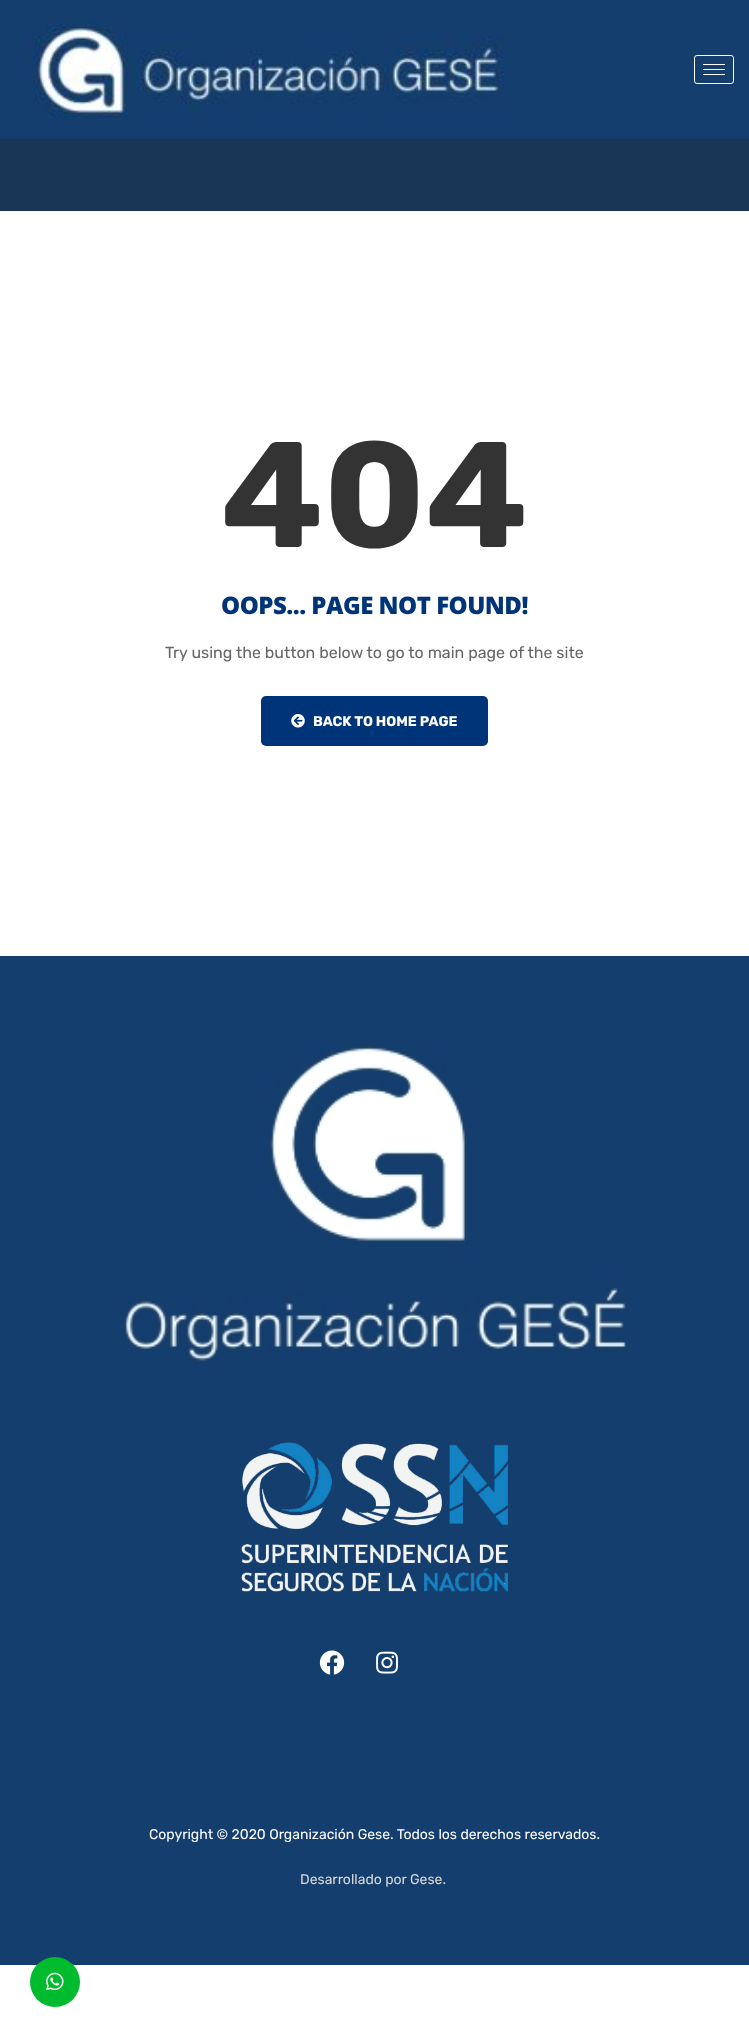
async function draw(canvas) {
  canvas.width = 749;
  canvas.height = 2037;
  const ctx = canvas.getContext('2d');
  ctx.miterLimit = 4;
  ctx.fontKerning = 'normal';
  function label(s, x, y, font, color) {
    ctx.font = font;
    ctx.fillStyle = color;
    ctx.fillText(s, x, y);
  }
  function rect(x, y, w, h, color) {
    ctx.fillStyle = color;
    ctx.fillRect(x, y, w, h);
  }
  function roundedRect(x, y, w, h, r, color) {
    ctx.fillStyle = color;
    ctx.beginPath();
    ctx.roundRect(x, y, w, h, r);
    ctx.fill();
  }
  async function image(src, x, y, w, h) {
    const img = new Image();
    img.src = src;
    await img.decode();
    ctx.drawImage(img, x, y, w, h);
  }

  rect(0, 0, 749, 2037, '#fff');
  rect(0, 0, 749, 139, '#133e6e');
  await image('assets/img1.png', 20, 16, 484, 102);
  ctx.beginPath();
  ctx.roundRect(694.5, 55.5, 39, 28, 2.5);
  ctx.strokeStyle = '#fff';
  ctx.stroke();
  rect(703, 64, 22, 1, '#fff');
  rect(703, 69, 22, 1, '#fff');
  rect(703, 74, 22, 1, '#fff');
  rect(0, 139, 749, 72, '#193656');
  label('404', 221, 547, 'bold 150px Rubik', '#333');
  ctx.letterSpacing = '-0.5px';
  label('OOPS... PAGE NOT FOUND!', 221, 614, '800 24px Open Sans', '#003478');
  ctx.letterSpacing = '0px';
  label('Try using the button below to go to main page of the site', 165, 658, '16px Rubik', '#666');
  roundedRect(261, 696, 227, 50, 5, '#003478');
  await image('assets/img2.png', 291, 714, 14, 14);
  label('BACK TO HOME PAGE', 313, 726, 'bold 14px Rubik', '#fff');
  rect(0, 956, 749, 1009, '#133e6e');
  await image('assets/img3.png', 123, 1045, 504, 317);
  await image('assets/img4.png', 241, 1442, 267, 150);
  await image('assets/img5.png', 319, 1650, 26, 25);
  await image('assets/img6.png', 376, 1651, 22, 23);
  label('Copyright © 2020 Organización Gese. Todos los derechos reservados.', 149, 1839, '14px Rubik', '#fff');
  label('Desarrollado por Gese.', 300, 1884, '14px Rubik', '#d9d9d9');
  ctx.fillStyle = '#00bb2d';
  ctx.beginPath();
  ctx.arc(55, 1982, 25, 0, 2 * Math.PI);
  ctx.fill();
  await image('assets/img7.png', 46, 1972, 18, 19);
}

draw(document.querySelector('canvas'));
